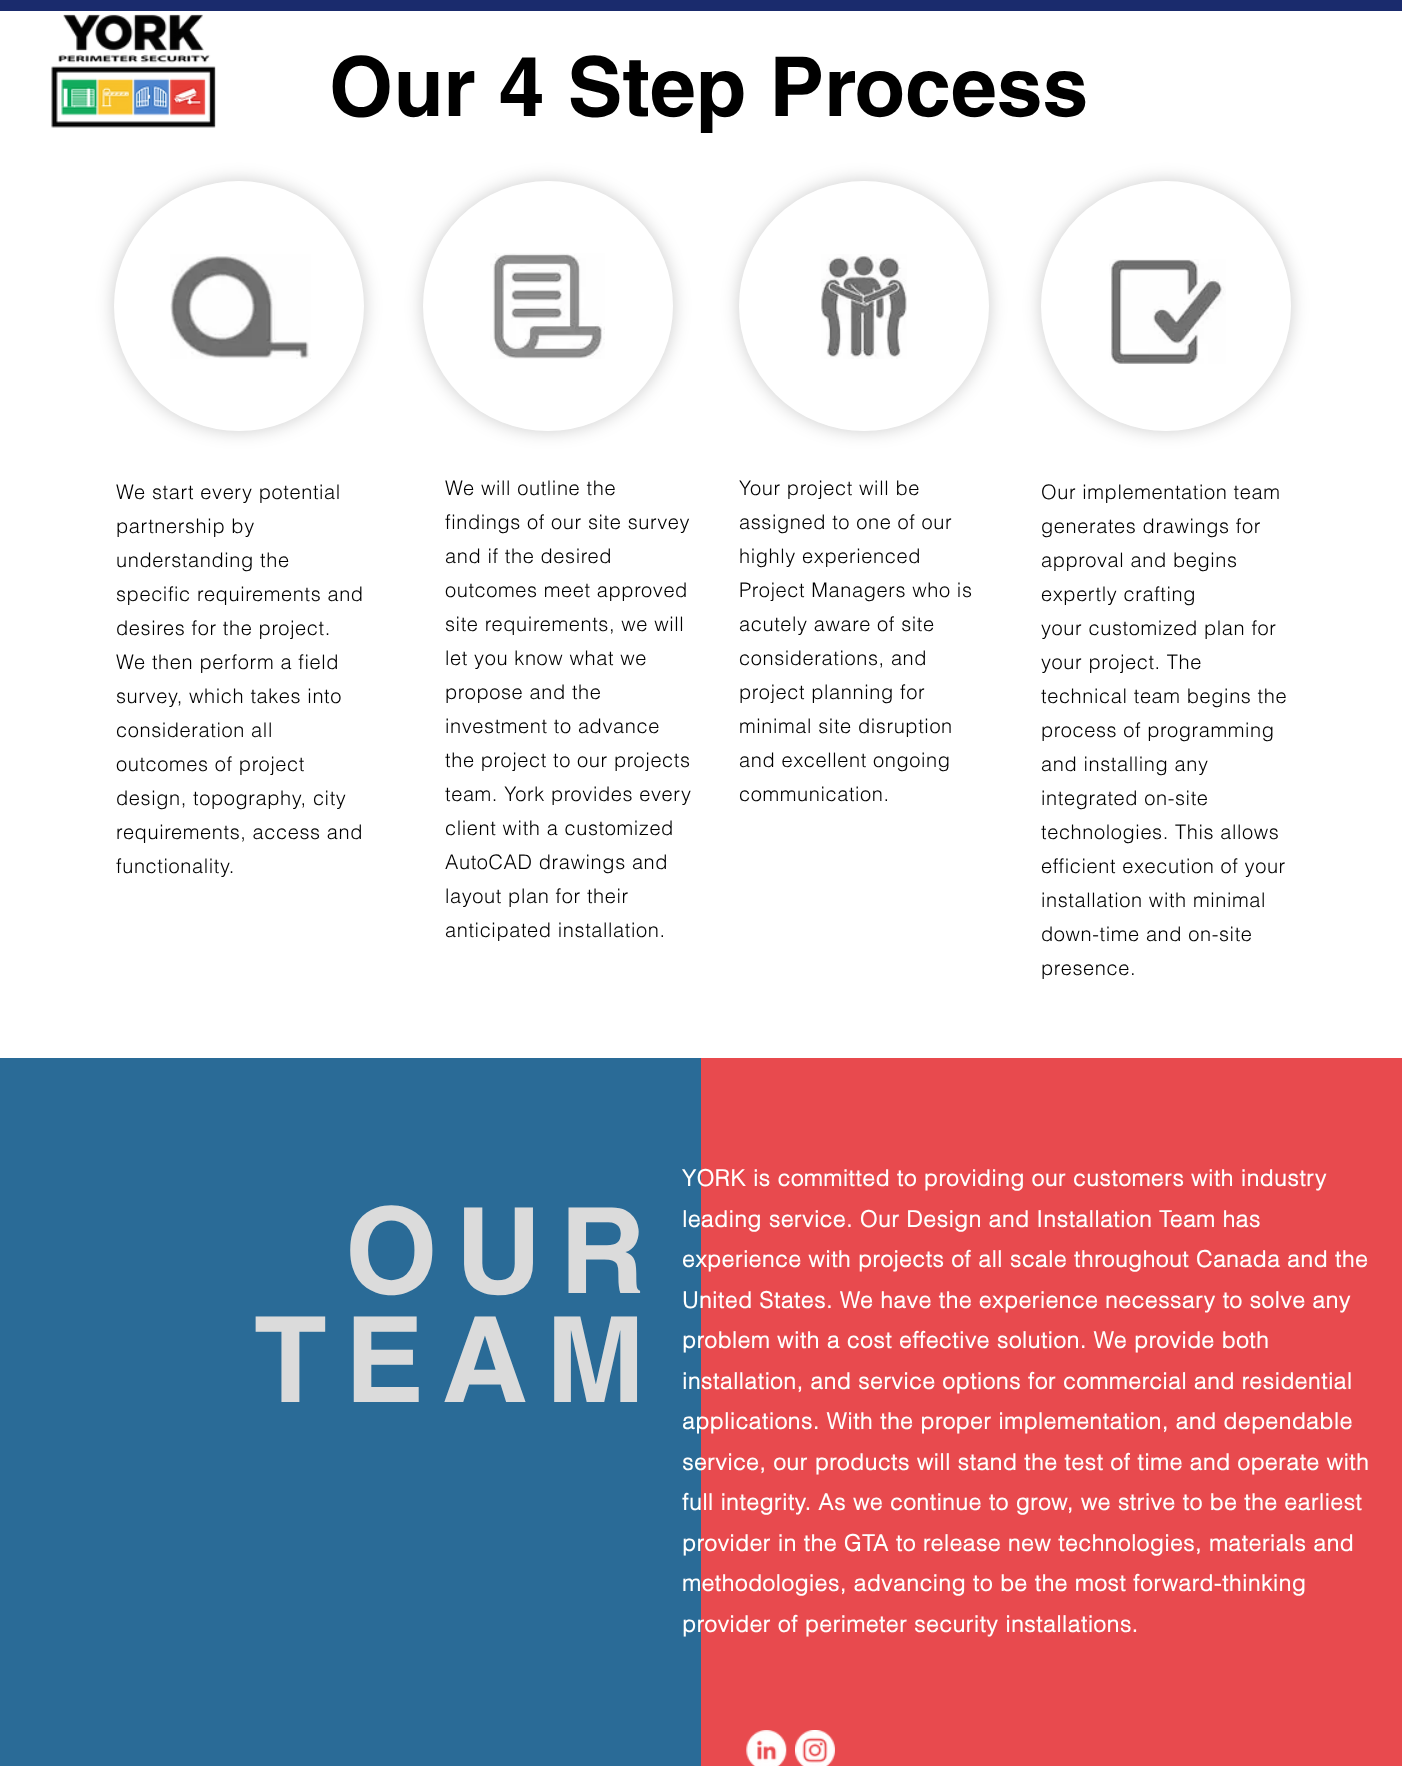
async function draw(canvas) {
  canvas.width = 1402;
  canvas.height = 1766;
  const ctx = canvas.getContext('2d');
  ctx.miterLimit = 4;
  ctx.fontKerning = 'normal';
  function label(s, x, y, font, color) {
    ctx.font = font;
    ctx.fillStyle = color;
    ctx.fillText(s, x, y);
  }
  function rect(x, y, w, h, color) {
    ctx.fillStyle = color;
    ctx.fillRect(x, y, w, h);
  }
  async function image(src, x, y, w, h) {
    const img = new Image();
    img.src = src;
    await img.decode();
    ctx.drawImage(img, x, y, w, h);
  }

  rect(0, 0, 1402, 1766, '#fff');
  await image('assets/img1.png', 51, 14, 165, 114);
  rect(0, 0, 1402, 11, '#1a2b6d');
  label('Our 4 Step Process', 329, 116, 'bold 82.5px helvetica', '#000');
  ctx.fillStyle = '#00000033';
  ctx.filter = 'blur(9px)';
  ctx.beginPath();
  ctx.roundRect(114, 181, 250, 250, 125);
  ctx.fill();
  ctx.filter = 'none';
  ctx.fillStyle = '#fff';
  ctx.beginPath();
  ctx.arc(239, 306, 121, 0, 2 * Math.PI);
  ctx.fill();
  ctx.strokeStyle = '#fff';
  ctx.lineWidth = 8;
  ctx.stroke();
  await image('assets/img2.png', 170, 254, 141, 105);
  ctx.fillStyle = '#00000033';
  ctx.filter = 'blur(9px)';
  ctx.beginPath();
  ctx.roundRect(423, 181, 250, 250, 125);
  ctx.fill();
  ctx.filter = 'none';
  ctx.fillStyle = '#fff';
  ctx.beginPath();
  ctx.arc(548, 306, 121, 0, 2 * Math.PI);
  ctx.fill();
  ctx.stroke();
  await image('assets/img3.png', 490, 253, 115, 106);
  ctx.fillStyle = '#00000033';
  ctx.filter = 'blur(9px)';
  ctx.beginPath();
  ctx.roundRect(739, 181, 250, 250, 125);
  ctx.fill();
  ctx.filter = 'none';
  ctx.fillStyle = '#fff';
  ctx.beginPath();
  ctx.arc(864, 306, 121, 0, 2 * Math.PI);
  ctx.fill();
  ctx.stroke();
  await image('assets/img4.png', 821, 254, 86, 105);
  ctx.fillStyle = '#00000033';
  ctx.filter = 'blur(9px)';
  ctx.beginPath();
  ctx.roundRect(1041, 181, 250, 250, 125);
  ctx.fill();
  ctx.filter = 'none';
  ctx.fillStyle = '#fff';
  ctx.beginPath();
  ctx.arc(1166, 306, 121, 0, 2 * Math.PI);
  ctx.fill();
  ctx.stroke();
  await image('assets/img5.png', 1109, 259, 117, 105);
  ctx.letterSpacing = '0.6px';
  label('We start every potential', 116, 499, '300 20px helvetica', '#000');
  label('partnership by', 116, 533, '300 20px helvetica', '#000');
  label('understanding the', 116, 567, '300 20px helvetica', '#000');
  label('specific requirements and', 116, 601, '300 20px helvetica', '#000');
  label('desires for the project.', 116, 635, '300 20px helvetica', '#000');
  label('We then perform a field', 116, 669, '300 20px helvetica', '#000');
  label('survey, which takes into', 116, 703, '300 20px helvetica', '#000');
  label('consideration all', 116, 737, '300 20px helvetica', '#000');
  label('outcomes of project', 116, 771, '300 20px helvetica', '#000');
  label('design, topography, city', 116, 805, '300 20px helvetica', '#000');
  label('requirements, access and', 116, 839, '300 20px helvetica', '#000');
  label('functionality.', 116, 873, '300 20px helvetica', '#000');
  label('We will outline the', 445, 495, '300 20px helvetica', '#000');
  label('findings of our site survey', 445, 529, '300 20px helvetica', '#000');
  label('and if the desired', 445, 563, '300 20px helvetica', '#000');
  label('outcomes meet approved', 445, 597, '300 20px helvetica', '#000');
  label('site requirements, we will', 445, 631, '300 20px helvetica', '#000');
  label('let you know what we', 445, 665, '300 20px helvetica', '#000');
  label('propose and the', 445, 699, '300 20px helvetica', '#000');
  label('investment to advance', 445, 733, '300 20px helvetica', '#000');
  label('the project to our projects', 445, 767, '300 20px helvetica', '#000');
  label('team. York provides every', 445, 801, '300 20px helvetica', '#000');
  label('client with a customized', 445, 835, '300 20px helvetica', '#000');
  label('AutoCAD drawings and', 445, 869, '300 20px helvetica', '#000');
  label('layout plan for their', 445, 903, '300 20px helvetica', '#000');
  label('anticipated installation.', 445, 937, '300 20px helvetica', '#000');
  label('Your project will be', 739, 495, '300 20px helvetica', '#000');
  label('assigned to one of our', 739, 529, '300 20px helvetica', '#000');
  label('highly experienced', 739, 563, '300 20px helvetica', '#000');
  label('Project Managers who is', 739, 597, '300 20px helvetica', '#000');
  label('acutely aware of site', 739, 631, '300 20px helvetica', '#000');
  label('considerations, and', 739, 665, '300 20px helvetica', '#000');
  label('project planning for', 739, 699, '300 20px helvetica', '#000');
  label('minimal site disruption', 739, 733, '300 20px helvetica', '#000');
  label('and excellent ongoing', 739, 767, '300 20px helvetica', '#000');
  label('communication.', 739, 801, '300 20px helvetica', '#000');
  label('Our implementation team', 1041, 499, '300 20px helvetica', '#000');
  label('generates drawings for', 1041, 533, '300 20px helvetica', '#000');
  label('approval and begins', 1041, 567, '300 20px helvetica', '#000');
  label('expertly crafting', 1041, 601, '300 20px helvetica', '#000');
  label('your customized plan for', 1041, 635, '300 20px helvetica', '#000');
  label('your project. The', 1041, 669, '300 20px helvetica', '#000');
  label('technical team begins the', 1041, 703, '300 20px helvetica', '#000');
  label('process of programming', 1041, 737, '300 20px helvetica', '#000');
  label('and installing any', 1041, 771, '300 20px helvetica', '#000');
  label('integrated on-site', 1041, 805, '300 20px helvetica', '#000');
  label('technologies. This allows', 1041, 839, '300 20px helvetica', '#000');
  label('efficient execution of your', 1041, 873, '300 20px helvetica', '#000');
  label('installation with minimal', 1041, 907, '300 20px helvetica', '#000');
  label('down-time and on-site', 1041, 941, '300 20px helvetica', '#000');
  label('presence.', 1041, 975, '300 20px helvetica', '#000');
  rect(0, 1058, 701, 708, '#2a6b97');
  ctx.letterSpacing = '18px';
  label('OUR', 345, 1293, 'bold 119px helvetica', '#dbdbdb');
  label('TEAM', 254, 1402, 'bold 119px helvetica', '#dbdbdb');
  rect(701, 1058, 701, 708, '#e84a4e');
  ctx.letterSpacing = '0.68px';
  label('YORK is committed to providing our customers with industry', 682, 1186, 'bold 22.5px "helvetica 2"', '#fffffe');
  label('leading service. Our Design and Installation Team has', 682, 1227, 'bold 22.5px "helvetica 2"', '#fffffe');
  label('experience with projects of all scale throughout Canada and the', 682, 1267, 'bold 22.5px "helvetica 2"', '#fffffe');
  label('United States. We have the experience necessary to solve any', 682, 1308, 'bold 22.5px "helvetica 2"', '#fffffe');
  label('problem with a cost effective solution. We provide both', 682, 1348, 'bold 22.5px "helvetica 2"', '#fffffe');
  label('installation, and service options for commercial and residential', 682, 1389, 'bold 22.5px "helvetica 2"', '#fffffe');
  label('applications. With the proper implementation, and dependable', 682, 1429, 'bold 22.5px "helvetica 2"', '#fffffe');
  label('service, our products will stand the test of time and operate with', 682, 1470, 'bold 22.5px "helvetica 2"', '#fffffe');
  label('full integrity. As we continue to grow, we strive to be the earliest', 682, 1510, 'bold 22.5px "helvetica 2"', '#fffffe');
  label('provider in the GTA to release new technologies, materials and', 682, 1551, 'bold 22.5px "helvetica 2"', '#fffffe');
  label('methodologies, advancing to be the most forward-thinking', 682, 1591, 'bold 22.5px "helvetica 2"', '#fffffe');
  label('provider of perimeter security installations.', 682, 1632, 'bold 22.5px "helvetica 2"', '#fffffe');
  await image('assets/img6.png', 746, 1730, 41, 36);
  await image('assets/img7.png', 795, 1730, 40, 36);
}

draw(document.querySelector('canvas'));
